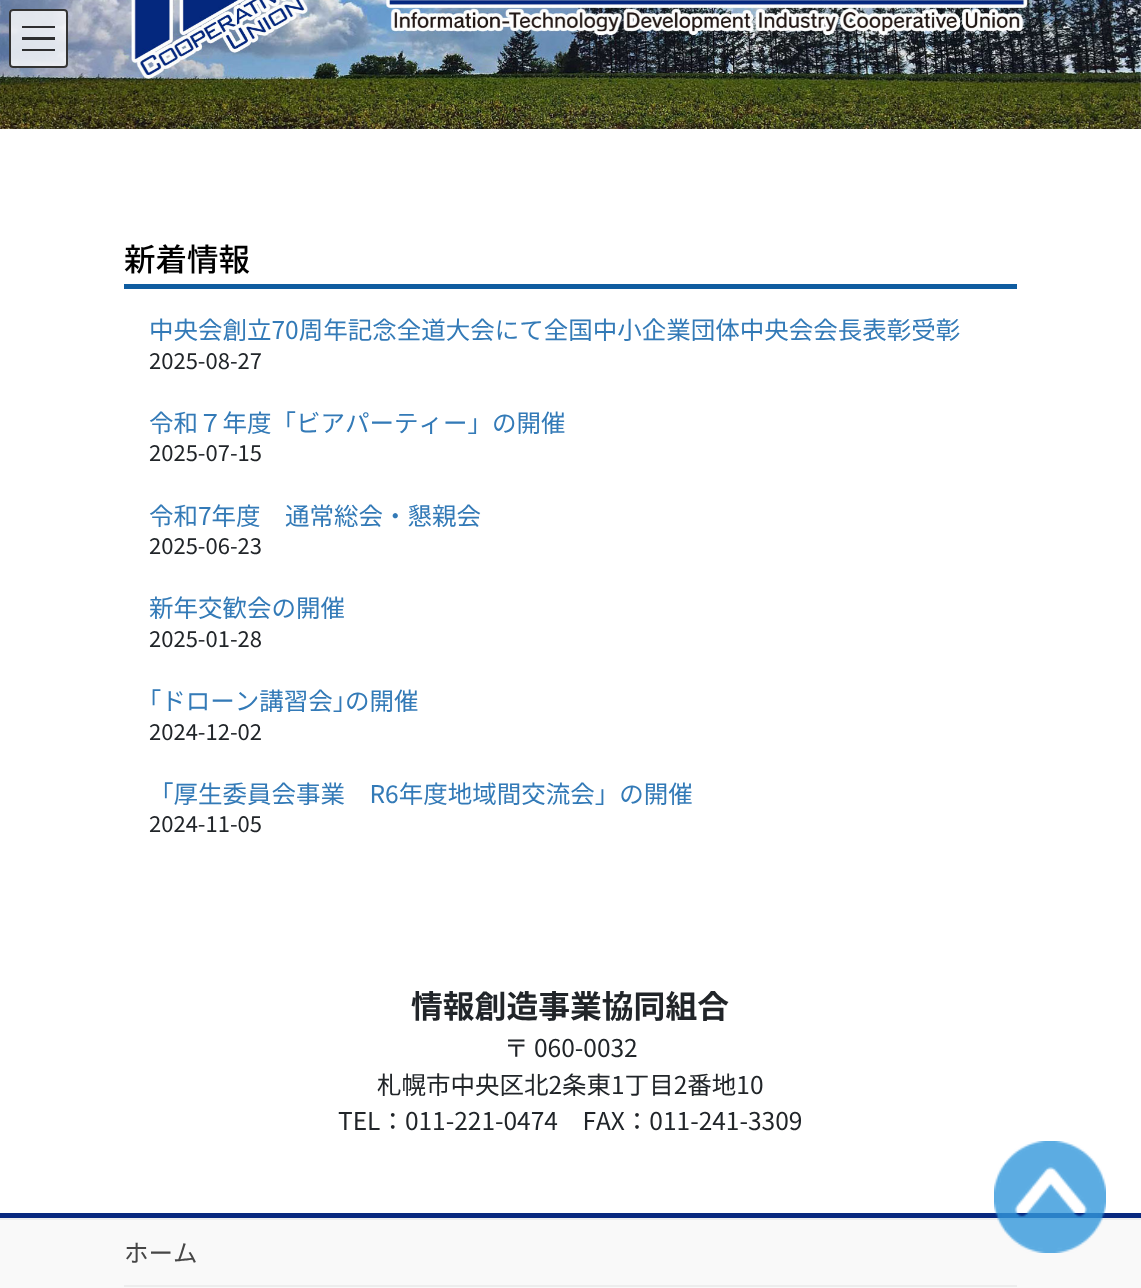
async function draw(canvas) {
  canvas.width = 1141;
  canvas.height = 1288;
  const ctx = canvas.getContext('2d');
  ctx.miterLimit = 4;
  ctx.fontKerning = 'none';
  function label(s, x, y, font, color) {
    ctx.font = font;
    ctx.fillStyle = color;
    ctx.fillText(s, x, y);
  }
  function rect(x, y, w, h, color) {
    ctx.fillStyle = color;
    ctx.fillRect(x, y, w, h);
  }
  function roundedRect(x, y, w, h, r, color) {
    ctx.fillStyle = color;
    ctx.beginPath();
    ctx.roundRect(x, y, w, h, r);
    ctx.fill();
  }
  async function image(src, x, y, w, h) {
    const img = new Image();
    img.src = src;
    await img.decode();
    ctx.drawImage(img, x, y, w, h);
  }

  rect(0, 0, 1141, 1288, '#fff');
  await image('assets/img1.png', 0, 0, 1141, 129);
  roundedRect(9, 9, 59, 59, 4, '#ffffffcc');
  rect(22, 26, 33, 2, '#000000cc');
  rect(22, 37, 33, 3, '#000000cc');
  rect(22, 49, 33, 2, '#000000cc');
  ctx.beginPath();
  ctx.roundRect(10, 10, 57, 57, 3);
  ctx.strokeStyle = '#333';
  ctx.lineWidth = 2;
  ctx.stroke();
  rect(124, 284, 893, 5, '#0f5ca0');
  label('新着情報', 124, 271, '500 31.5px Noto Sans JP', '#000');
  label('中央会創立70周年記念全道大会にて全国中小企業団体中央会会長表彰受彰', 149, 339, '24.5px Noto Sans JP', '#337ab7');
  label('2025-08-27', 149, 369, '22px Noto Sans JP', '#212529');
  label('令和７年度「ビアパーティー」の開催', 149, 432, '24.5px Noto Sans JP', '#337ab7');
  label('2025-07-15', 149, 461, '22px Noto Sans JP', '#212529');
  label('令和7年度　通常総会・懇親会', 149, 525, '24.5px Noto Sans JP', '#337ab7');
  label('2025-06-23', 149, 554, '22px Noto Sans JP', '#212529');
  label('新年交歓会の開催', 149, 617, '24.5px Noto Sans JP', '#337ab7');
  label('2025-01-28', 149, 647, '22px Noto Sans JP', '#212529');
  label('｢ドローン講習会｣の開催', 149, 710, '24.5px Noto Sans JP', '#337ab7');
  label('2024-12-02', 149, 740, '22px Noto Sans JP', '#212529');
  label('「厚生委員会事業　R6年度地域間交流会」の開催', 149, 803, '24.5px Noto Sans JP', '#337ab7');
  label('2024-11-05', 149, 832, '22px Noto Sans JP', '#212529');
  label('情報創造事業協同組合', 411, 1018, 'bold 31.8px Noto Sans JP', '#212529');
  label('〒 060-0032', 504, 1057, '24.5px Noto Sans JP', '#212529');
  label('札幌市中央区北2条東1丁目2番地10', 377, 1094, '24.5px Noto Sans JP', '#212529');
  label('TEL：011-221-0474　FAX：011-241-3309', 338, 1130, '24.5px Noto Sans JP', '#212529');
  rect(0, 1220, 1141, 68, '#f9f9f9');
  rect(0, 1213, 1141, 5, '#08287f');
  rect(0, 1218, 1141, 2, '#ededed');
  rect(124, 1285, 893, 2, '#ededed');
  label('ホーム', 124, 1262, '24.5px Noto Sans JP', '#464646');
  await image('assets/img2.png', 994, 1141, 112, 112);
}

draw(document.querySelector('canvas'));
